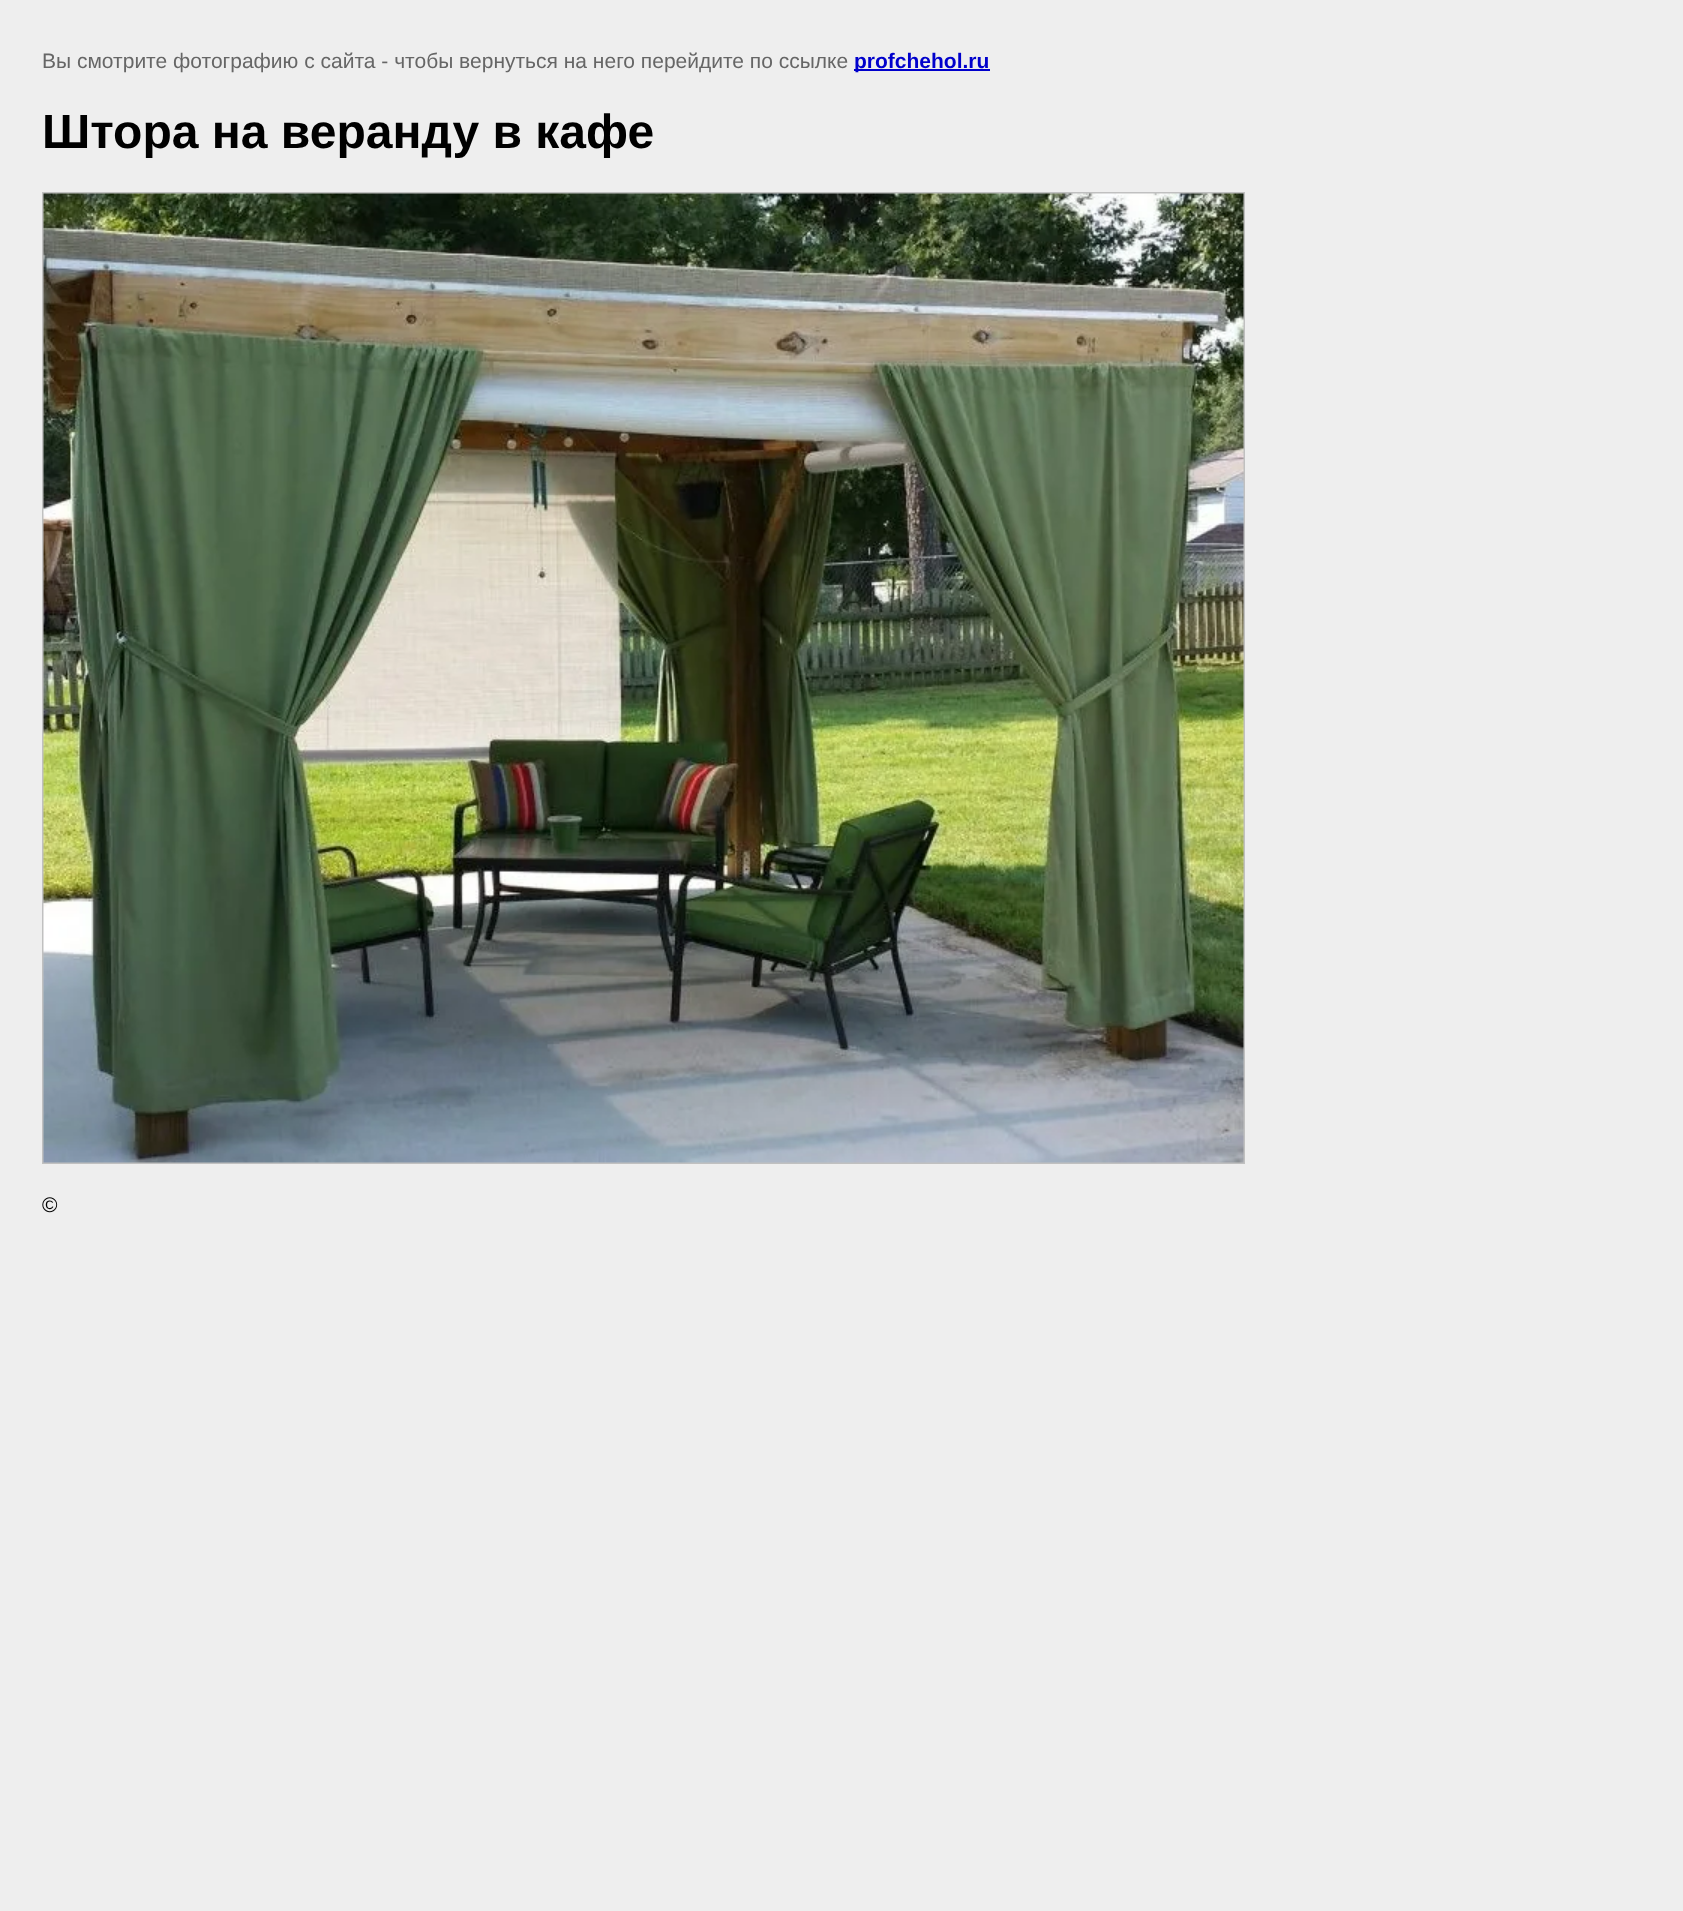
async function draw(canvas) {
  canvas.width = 1683;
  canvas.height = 1911;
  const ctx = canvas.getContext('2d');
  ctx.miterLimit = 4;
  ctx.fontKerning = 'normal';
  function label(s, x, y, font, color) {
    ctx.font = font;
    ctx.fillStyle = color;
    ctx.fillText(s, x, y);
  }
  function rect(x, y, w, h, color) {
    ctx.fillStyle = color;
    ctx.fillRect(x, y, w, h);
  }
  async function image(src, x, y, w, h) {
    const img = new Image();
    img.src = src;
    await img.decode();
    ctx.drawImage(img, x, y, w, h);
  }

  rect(0, 0, 1683, 1911, '#eee');
  label('Вы смотрите фотографию с сайта - чтобы вернуться на него перейдите по ссылке', 42, 68, '21px Liberation Sans', '#666');
  rect(854, 69, 136, 2, '#00c');
  label('profchehol.ru', 854, 68, 'bold 21px Liberation Sans', '#00c');
  label('Штора на веранду в кафе', 42, 148, 'bold 48px Liberation Sans', '#000');
  ctx.strokeStyle = '#c0c0c0';
  ctx.lineWidth = 2;
  ctx.strokeRect(43, 193, 1201, 970);
  await image('assets/img1.png', 43, 193, 1201, 970);
  label('©', 42, 1212, '21px Liberation Sans', '#000');
}

draw(document.querySelector('canvas'));
